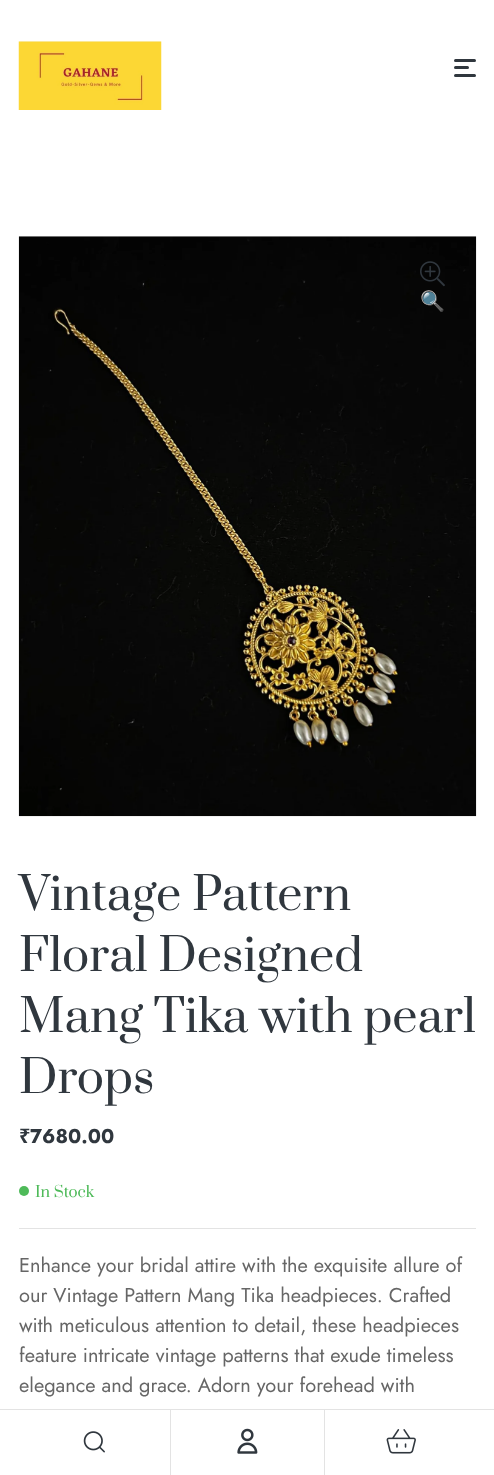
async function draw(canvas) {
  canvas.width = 494;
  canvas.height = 1475;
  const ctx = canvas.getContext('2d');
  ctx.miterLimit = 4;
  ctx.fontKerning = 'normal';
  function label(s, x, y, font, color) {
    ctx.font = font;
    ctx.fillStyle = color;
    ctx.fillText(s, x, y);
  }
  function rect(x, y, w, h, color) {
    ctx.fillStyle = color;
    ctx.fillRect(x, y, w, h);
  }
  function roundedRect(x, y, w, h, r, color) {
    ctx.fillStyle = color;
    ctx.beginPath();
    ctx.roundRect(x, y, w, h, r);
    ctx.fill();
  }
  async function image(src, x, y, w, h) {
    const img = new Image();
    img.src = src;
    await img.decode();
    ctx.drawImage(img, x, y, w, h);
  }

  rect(0, 0, 494, 1475, '#fff');
  await image('assets/img1.png', 18, 41, 144, 69);
  roundedRect(454, 59, 22, 3, 1.5, '#30373e');
  roundedRect(454, 66, 15, 3, 1.5, '#30373e');
  roundedRect(454, 74, 22, 3, 1.5, '#30373e');
  await image('assets/img2.png', 18, 236, 459, 581);
  await image('assets/img3.png', 420, 261, 25, 26);
  label('🔍', 420, 308, '20px Noto Color Emoji', '#30373e');
  label('Vintage Pattern', 19, 910, '45px Prata', '#30373e');
  label('Floral Designed', 19, 971, '45px Prata', '#30373e');
  label('Mang Tika with pearl', 19, 1032, '45px Prata', '#30373e');
  label('Drops', 19, 1093, '45px Prata', '#30373e');
  label('₹', 19, 1143, 'bold 20px Noto Sans', '#30373e');
  label('7680.00', 30, 1143, 'bold 20px Jost', '#30373e');
  ctx.fillStyle = '#4eba59';
  ctx.beginPath();
  ctx.arc(24, 1191, 5, 0, 2 * Math.PI);
  ctx.fill();
  label('In Stock', 35, 1197, '15px Prata', '#4eba59');
  rect(19, 1228, 457, 1, '#e3e3e3');
  label('Enhance your bridal attire with the exquisite allure of', 19, 1272, '20px Jost', '#666');
  label('our Vintage Pattern Mang Tika headpieces. Crafted', 19, 1302, '20px Jost', '#666');
  label('with meticulous attention to detail, these headpieces', 19, 1332, '20px Jost', '#666');
  label('feature intricate vintage patterns that exude timeless', 19, 1362, '20px Jost', '#666');
  label('elegance and grace. Adorn your forehead with', 19, 1392, '20px Jost', '#666');
  rect(0, 1409, 494, 1, '#e3e3e3');
  await image('assets/img4.png', 83, 1431, 22, 22);
  rect(324, 1410, 1, 65, '#e3e3e3');
  rect(170, 1410, 1, 65, '#e3e3e3');
  await image('assets/img5.png', 237, 1428, 21, 26);
  await image('assets/img6.png', 386, 1429, 30, 25);
}

draw(document.querySelector('canvas'));
